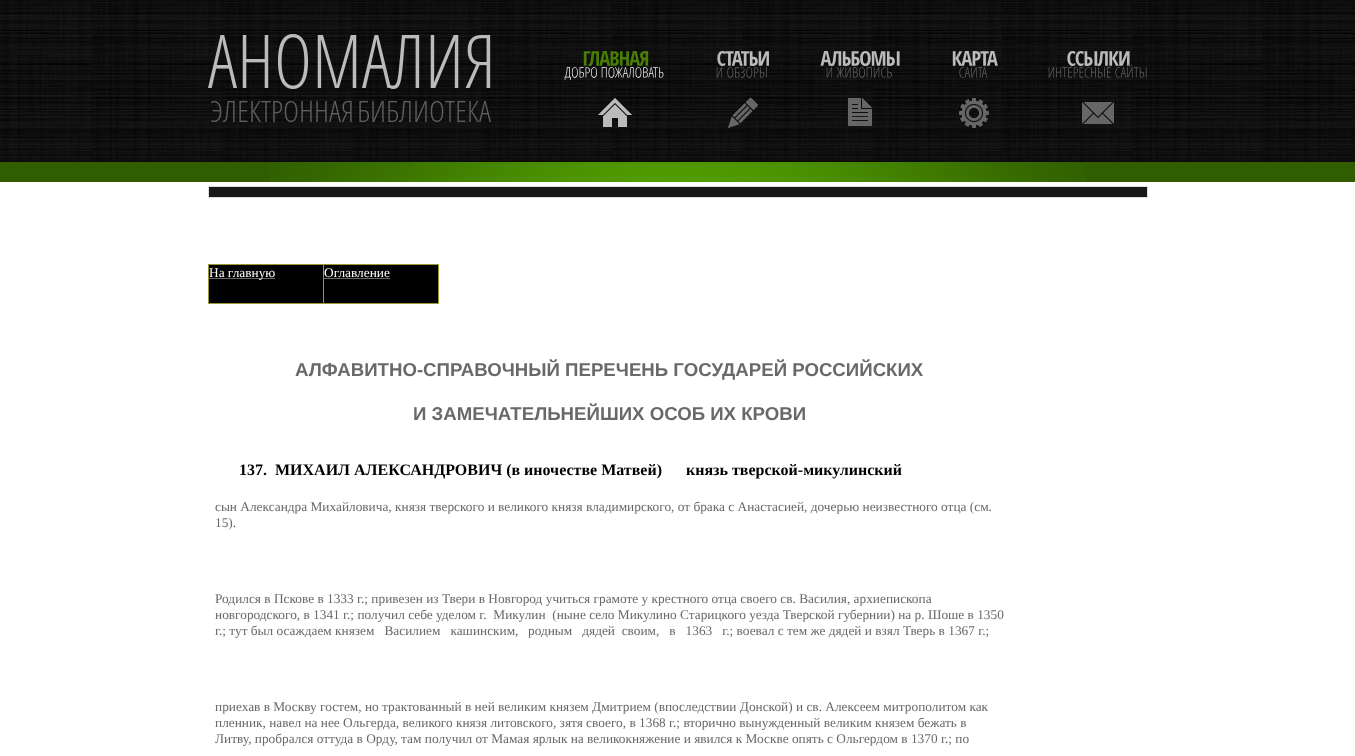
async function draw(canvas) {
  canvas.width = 1355;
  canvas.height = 756;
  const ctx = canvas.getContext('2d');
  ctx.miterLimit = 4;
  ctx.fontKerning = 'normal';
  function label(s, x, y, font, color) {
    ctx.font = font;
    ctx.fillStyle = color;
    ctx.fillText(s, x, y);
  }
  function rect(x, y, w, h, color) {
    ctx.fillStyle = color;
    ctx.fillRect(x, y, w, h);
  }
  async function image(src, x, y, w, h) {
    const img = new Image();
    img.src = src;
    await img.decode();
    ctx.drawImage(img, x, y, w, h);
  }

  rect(0, 0, 1355, 756, '#fff');
  await image('assets/img1.png', 0, 0, 1355, 162);
  rect(0, 162, 1355, 20, '#305d00');
  await image('assets/img2.png', 270, 162, 816, 20);
  await image('assets/img3.png', 208, 34, 283, 88);
  await image('assets/img4.png', 597, 98, 36, 29);
  await image('assets/img5.png', 583, 51, 66, 15);
  await image('assets/img6.png', 564, 67, 33, 13);
  await image('assets/img7.png', 601, 67, 63, 11);
  await image('assets/img8.png', 727, 98, 31, 30);
  await image('assets/img9.png', 717, 51, 52, 15);
  await image('assets/img10.png', 716, 67, 7, 11);
  await image('assets/img11.png', 727, 67, 40, 11);
  await image('assets/img12.png', 848, 98, 24, 28);
  await image('assets/img13.png', 820, 51, 80, 15);
  await image('assets/img14.png', 826, 67, 7, 11);
  await image('assets/img15.png', 836, 67, 56, 11);
  await image('assets/img16.png', 959, 98, 30, 30);
  await image('assets/img17.png', 952, 51, 46, 15);
  await image('assets/img18.png', 959, 64, 29, 14);
  await image('assets/img19.png', 1082, 102, 32, 22);
  await image('assets/img20.png', 1067, 51, 63, 15);
  await image('assets/img21.png', 1048, 67, 63, 11);
  await image('assets/img22.png', 1115, 64, 32, 14);
  ctx.fillStyle = '#181818';
  ctx.beginPath();
  ctx.rect(208.5, 186.5, 939, 11);
  ctx.fill();
  ctx.strokeStyle = '#ddd';
  ctx.stroke();
  rect(209, 265, 229, 38, '#000');
  rect(208, 264, 231, 1, '#993');
  rect(438, 264, 1, 40, '#993');
  rect(323, 303, 116, 1, '#993');
  rect(323, 264, 1, 40, '#993');
  rect(208, 303, 116, 1, '#993');
  rect(208, 264, 1, 40, '#993');
  rect(209, 278, 66, 1, '#696969');
  label('На главную', 209, 277, '13.33px Liberation Serif', '#fff');
  label('Оглавление', 324, 277, '13.33px Liberation Serif', '#fff');
  rect(324, 278, 66, 1, '#696969');
  label('АЛФАВИТНО-СПРАВОЧНЫЙ ПЕРЕЧЕНЬ ГОСУДАРЕЙ РОССИЙСКИХ', 295, 376, 'bold 18.65px Liberation Sans', '#696969');
  label('И ЗАМЕЧАТЕЛЬНЕЙШИХ ОСОБ ИХ КРОВИ', 413, 420, 'bold 18.65px Liberation Sans', '#696969');
  label('137.  МИХАИЛ АЛЕКСАНДРОВИЧ (в иночестве Матвей)', 239, 475, 'bold 16px Liberation Serif', '#000');
  label('князь тверской-микулинский', 686, 475, 'bold 16px Liberation Serif', '#000');
  label('сын Александра Михайловича, князя тверского и великого князя владимирского, от брака с Анастасией, дочерью неизвестного отца (см.', 215, 511, '13.33px Liberation Serif', '#696969');
  label('15).', 215, 527, '13.33px Liberation Serif', '#696969');
  label('Родился в Пскове в 1333 г.; привезен из Твери в Новгород учиться грамоте у крестного отца своего св. Василия, архиепископа', 215, 603, '13.33px Liberation Serif', '#696969');
  label('новгородского, в 1341 г.; получил себе уделом г.  Микулин  (ныне село Микулино Старицкого уезда Тверской губернии) на р. Шоше в 1350', 215, 619, '13.33px Liberation Serif', '#696969');
  label('г.; тут был осаждаем князем   Василием   кашинским,', 215, 635, '13.33px Liberation Serif', '#696969');
  label('родным   дядей  своим,   в   1363   г.; воевал с тем же дядей и взял Тверь в 1367 г.;', 528, 635, '13.33px Liberation Serif', '#696969');
  label('приехав в Москву гостем, но трактованный в ней великим князем Дмитрием (впоследствии Донской) и св. Алексеем митрополитом как', 215, 711, '13.33px Liberation Serif', '#696969');
  label('пленник, навел на нее Ольгерда, великого князя литовского, зятя своего, в 1368 г.; вторично вынужденный великим князем бежать в', 215, 727, '13.33px Liberation Serif', '#696969');
  label('Литву, пробрался оттуда в Орду, там получил от Мамая ярлык на великокняжение и явился к Москве опять с Ольгердом в 1370 г.; по', 215, 743, '13.33px Liberation Serif', '#696969');
}

draw(document.querySelector('canvas'));
